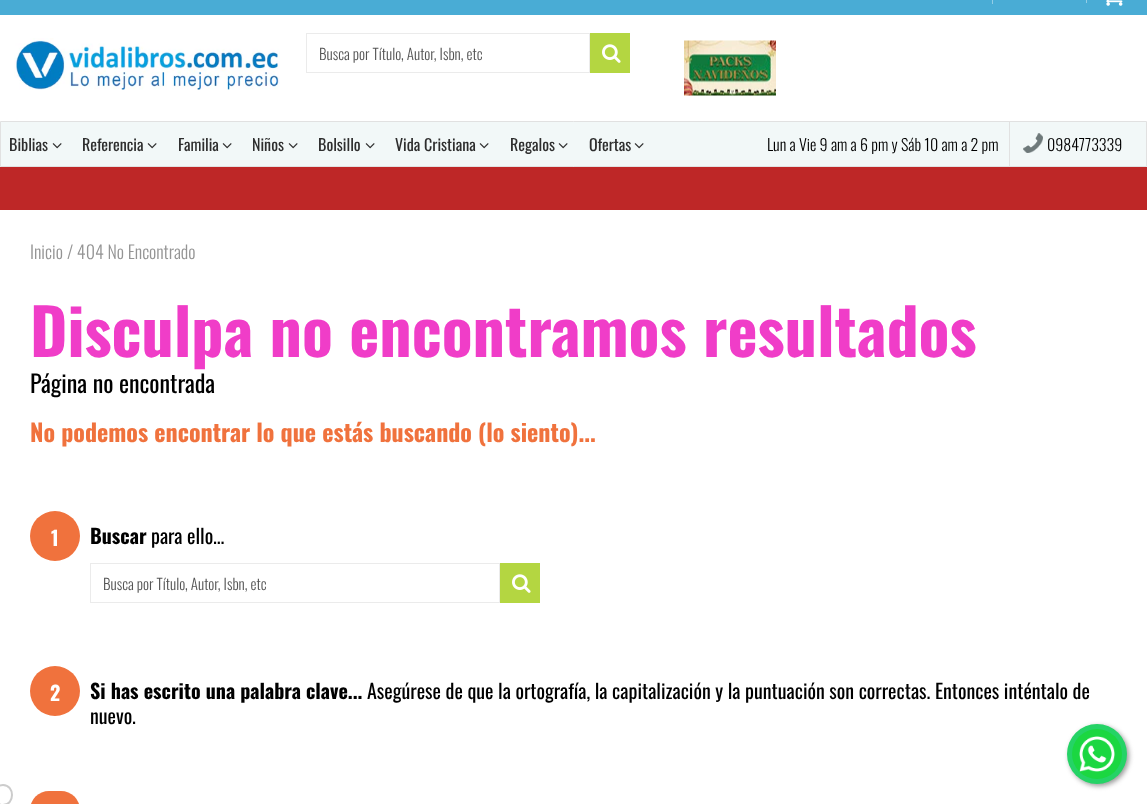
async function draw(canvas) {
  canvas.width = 1147;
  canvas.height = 804;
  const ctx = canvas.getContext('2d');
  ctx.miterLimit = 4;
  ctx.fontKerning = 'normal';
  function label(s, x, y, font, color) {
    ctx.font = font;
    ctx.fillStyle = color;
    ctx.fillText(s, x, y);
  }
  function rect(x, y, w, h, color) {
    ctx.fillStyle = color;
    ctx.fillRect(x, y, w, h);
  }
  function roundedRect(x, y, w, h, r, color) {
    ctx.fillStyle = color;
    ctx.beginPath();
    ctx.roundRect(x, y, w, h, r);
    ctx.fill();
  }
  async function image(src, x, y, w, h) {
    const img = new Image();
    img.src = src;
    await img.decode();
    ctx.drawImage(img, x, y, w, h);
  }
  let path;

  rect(0, 0, 1147, 804, '#fff');
  rect(0, 0, 1147, 15, '#49acd5');
  rect(992, 0, 1, 4, '#92cde6');
  rect(1086, 0, 1, 3, '#92cde6');
  await image('assets/img1.png', 1106, 0, 17, 6);
  await image('assets/img2.png', 14, 38, 266, 52);
  ctx.strokeStyle = '#ebebeb';
  ctx.strokeRect(306.5, 33.5, 283, 39);
  label('Busca por Título, Autor, Isbn, etc', 319, 60, '300 15px Oswald', '#555');
  rect(590, 33, 40, 40, '#b4d641');
  await image('assets/img3.png', 602, 44, 19, 19);
  await image('assets/img4.png', 684, 40, 92, 56);
  ctx.fillStyle = '#f2f8f8';
  ctx.beginPath();
  ctx.rect(0.5, 121.5, 1146, 45);
  ctx.fill();
  ctx.strokeStyle = '#e1e1e1';
  ctx.stroke();
  label('Biblias', 9, 151, '16px Oswald', '#2e2e2e');
  await image('assets/img5.png', 52, 143, 10, 6);
  label('Referencia', 82, 151, '16px Oswald', '#2e2e2e');
  await image('assets/img5.png', 147, 143, 10, 6);
  label('Familia', 178, 151, '16px Oswald', '#2e2e2e');
  await image('assets/img5.png', 222, 143, 10, 6);
  label('Niños', 252, 151, '16px Oswald', '#2e2e2e');
  await image('assets/img5.png', 288, 143, 10, 6);
  label('Bolsillo', 318, 151, '16px Oswald', '#2e2e2e');
  await image('assets/img5.png', 365, 143, 10, 6);
  label('Vida Cristiana', 395, 151, '16px Oswald', '#2e2e2e');
  await image('assets/img5.png', 479, 143, 10, 6);
  label('Regalos', 510, 151, '16px Oswald', '#2e2e2e');
  await image('assets/img5.png', 558, 143, 10, 6);
  label('Ofertas', 589, 151, '16px Oswald', '#2e2e2e');
  await image('assets/img5.png', 634, 143, 10, 6);
  rect(1009, 122, 1, 44, '#e1e1e1');
  label('Lun a Vie 9 am a 6 pm y Sáb 10 am a 2 pm', 767, 151, '300 16px Oswald', '#000');
  await image('assets/img6.png', 1023, 133, 20, 20);
  label('0984773339', 1047, 151, '300 16px Oswald', '#000');
  rect(0, 167, 1147, 43, '#be2727');
  label('Inicio', 30, 259, '300 18px Oswald', '#949494');
  label('/ 404 No Encontrado', 67, 259, '300 18px Oswald', '#949494');
  label('Disculpa no encontramos resultados', 30, 357, 'bold 64px Oswald', '#f03dc8');
  label('Página no encontrada', 30, 393, '24px Oswald', '#000');
  label('No podemos encontrar lo que estás buscando (lo siento)...', 30, 442, 'bold 24px Oswald', '#f0723d');
  ctx.beginPath();
  ctx.arc(55, 536, 25, 0, 2 * Math.PI);
  ctx.fill();
  label('1', 51, 546, 'bold 20px Oswald', '#fff');
  label('Buscar', 90, 544, 'bold 20px Oswald', '#000');
  label('para ello...', 151, 544, '20px Oswald', '#000');
  ctx.strokeStyle = '#ebebeb';
  ctx.strokeRect(90.5, 563.5, 409, 39);
  label('Busca por Título, Autor, Isbn, etc', 103, 590, '300 15px Oswald', '#555');
  rect(500, 563, 40, 40, '#b4d641');
  await image('assets/img3.png', 512, 574, 19, 19);
  ctx.fillStyle = '#f0723d';
  ctx.beginPath();
  ctx.arc(55, 691, 25, 0, 2 * Math.PI);
  ctx.fill();
  label('2', 50, 701, 'bold 20px Oswald', '#fff');
  label('Si has escrito una palabra clave...', 90, 699, 'bold 20px Oswald', '#000');
  label('Asegúrese de que la ortografía, la capitalización y la puntuación son correctas. Entonces inténtalo de', 367, 699, '20px Oswald', '#000');
  label('nuevo.', 90, 724, '20px Oswald', '#000');
  roundedRect(30, 791, 50, 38, 25, '#f0723d');
  path = new Path2D('M3 785C15 785 15 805 3 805C-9 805-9 785 3 785Z');
  ctx.strokeStyle = '#ccc';
  ctx.lineWidth = 2;
  ctx.stroke(path);
  ctx.fillStyle = '#999';
  ctx.filter = 'blur(2.5px)';
  ctx.beginPath();
  ctx.roundRect(1069, 726, 60, 60, 30);
  ctx.fill();
  ctx.filter = 'none';
  ctx.fillStyle = '#25d366';
  ctx.beginPath();
  ctx.arc(1097, 754, 30, 0, 2 * Math.PI);
  ctx.fill();
  await image('assets/img7.png', 1072, 729, 50, 50);
}

draw(document.querySelector('canvas'));
